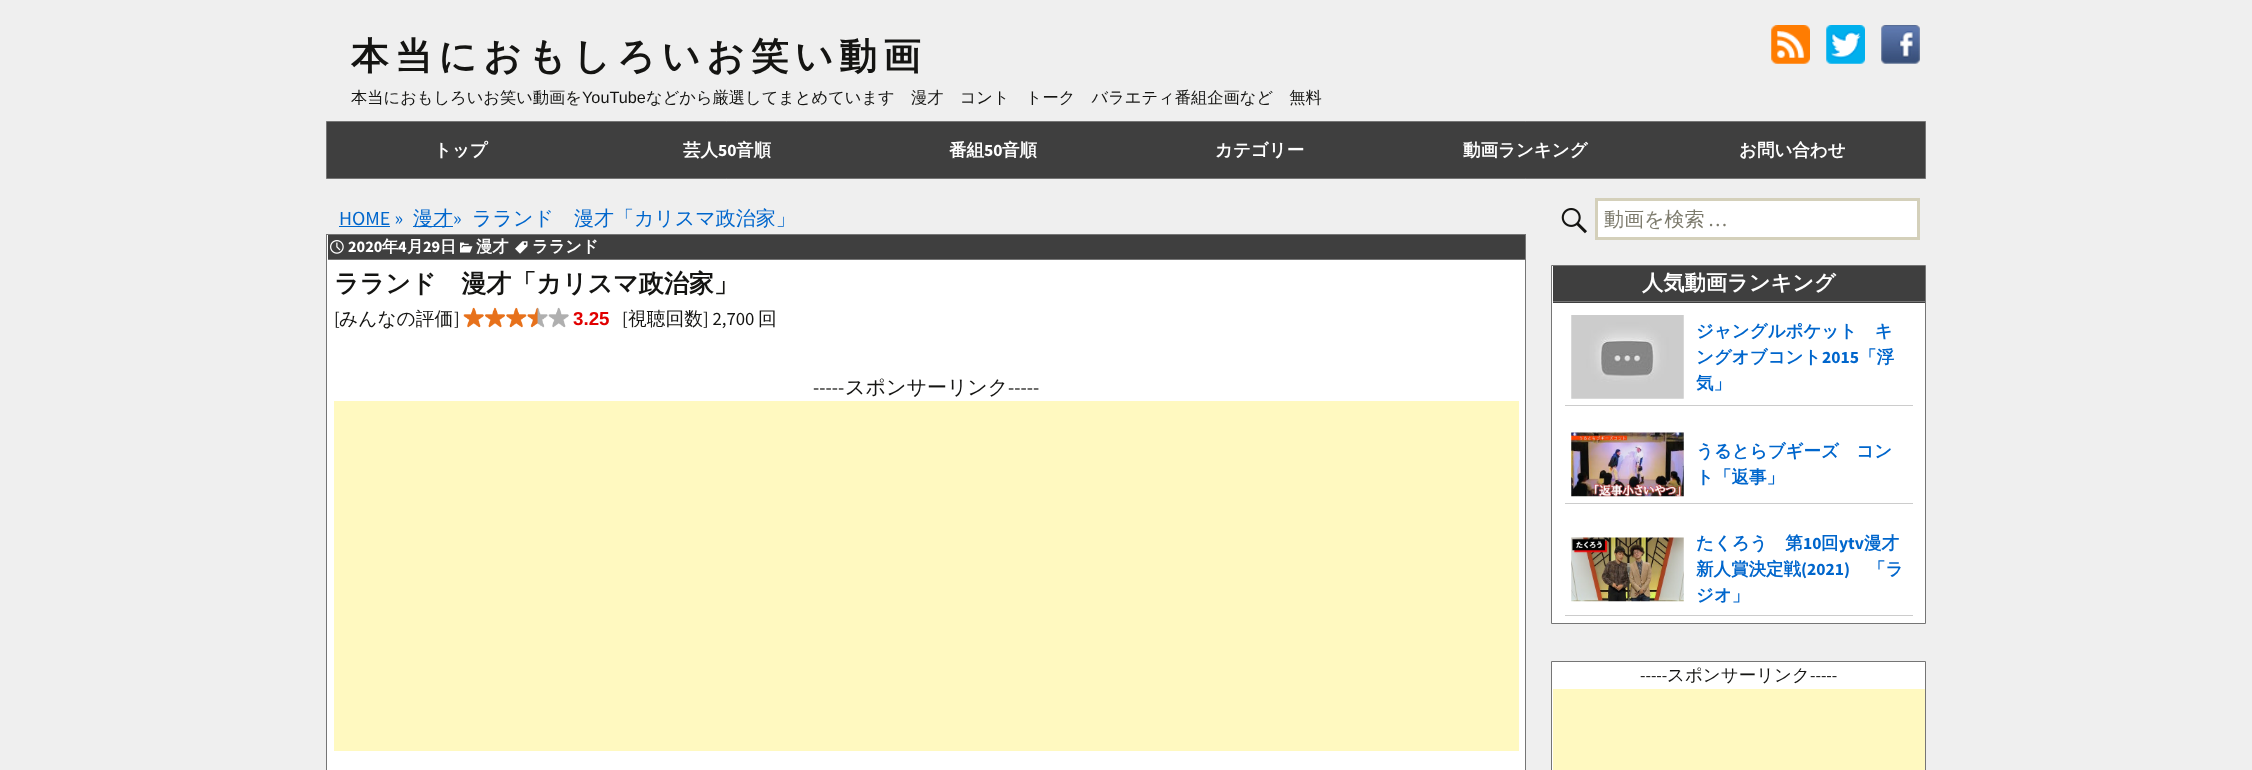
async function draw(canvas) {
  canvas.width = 2252;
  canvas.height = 770;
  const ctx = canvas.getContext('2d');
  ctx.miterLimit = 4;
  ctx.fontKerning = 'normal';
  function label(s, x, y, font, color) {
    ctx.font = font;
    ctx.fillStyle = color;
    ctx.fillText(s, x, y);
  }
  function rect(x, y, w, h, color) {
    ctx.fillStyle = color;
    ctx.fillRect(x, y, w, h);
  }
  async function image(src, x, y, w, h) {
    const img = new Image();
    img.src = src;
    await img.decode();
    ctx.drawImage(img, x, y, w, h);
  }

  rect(0, 0, 2252, 770, '#efefef');
  ctx.letterSpacing = '6.25px';
  label('本当におもしろいお笑い動画', 351, 69, 'bold 37.5px WenQuanYi Zen Hei', '#141412');
  await image('assets/img1.png', 1771, 25, 39, 39);
  await image('assets/img2.png', 1826, 25, 39, 39);
  await image('assets/img3.png', 1881, 25, 39, 39);
  ctx.letterSpacing = '0px';
  label('本当におもしろいお笑い動画を', 351, 103, '500 16.25px WenQuanYi Zen Hei', '#141412');
  label('YouTube', 582, 103, '16.25px Liberation Sans', '#141412');
  label('などから厳選してまとめています　漫才　コント　トーク　バラエティ番組企画など　無料', 646, 103, '500 16.25px WenQuanYi Zen Hei', '#141412');
  ctx.fillStyle = '#3f3f3f';
  ctx.beginPath();
  ctx.rect(326.5, 121.5, 1599, 57);
  ctx.fill();
  ctx.strokeStyle = '#757575';
  ctx.stroke();
  label('トップ', 434, 156, 'bold 17.5px WenQuanYi Zen Hei', '#fff');
  label('芸人', 683, 156, 'bold 17.5px WenQuanYi Zen Hei', '#fff');
  label('50', 718, 156, 'bold 17.5px Source Sans Pro', '#fff');
  label('音順', 736, 156, 'bold 17.5px WenQuanYi Zen Hei', '#fff');
  label('番組', 949, 156, 'bold 17.5px WenQuanYi Zen Hei', '#fff');
  label('50', 984, 156, 'bold 17.5px Source Sans Pro', '#fff');
  label('音順', 1002, 156, 'bold 17.5px WenQuanYi Zen Hei', '#fff');
  label('カテゴリー', 1215, 156, 'bold 17.5px WenQuanYi Zen Hei', '#fff');
  label('動画ランキング', 1463, 156, 'bold 17.5px WenQuanYi Zen Hei', '#fff');
  label('お問い合わせ', 1739, 156, 'bold 17.5px WenQuanYi Zen Hei', '#fff');
  label('HOME »', 339, 225, '20px Source Sans Pro', '#06c');
  rect(339, 226, 51, 1, '#06c');
  rect(413, 226, 40, 1, '#06c');
  label('漫才', 413, 225, '500 20px WenQuanYi Zen Hei', '#06c');
  label('»', 453, 225, '20px Source Sans Pro', '#06c');
  label('ラランド　漫才「カリスマ政治家」', 472, 225, '500 20px WenQuanYi Zen Hei', '#06c');
  rect(327, 235, 1198, 535, '#fff');
  rect(326, 234, 1200, 1, '#757575');
  rect(1525, 234, 1, 536, '#757575');
  rect(326, 234, 1, 536, '#757575');
  rect(328, 235, 1197, 24, '#3f3f3f');
  rect(328, 259, 1197, 1, '#757575');
  await image('assets/img4.png', 330, 240, 14, 14);
  label('2020', 348, 252, 'bold 16.25px Source Sans Pro', '#fff');
  label('年', 382, 252, 'bold 16.25px WenQuanYi Zen Hei', '#fff');
  label('4', 398, 252, 'bold 16.25px Source Sans Pro', '#fff');
  label('月', 407, 252, 'bold 16.25px WenQuanYi Zen Hei', '#fff');
  label('29', 423, 252, 'bold 16.25px Source Sans Pro', '#fff');
  label('日', 440, 252, 'bold 16.25px WenQuanYi Zen Hei', '#fff');
  await image('assets/img5.png', 460, 242, 13, 11);
  label('漫才', 476, 252, 'bold 16.25px WenQuanYi Zen Hei', '#fff');
  await image('assets/img6.png', 515, 241, 13, 13);
  label('ラランド', 532, 252, 'bold 16.25px WenQuanYi Zen Hei', '#fff');
  label('ラランド　漫才「カリスマ政治家」', 334, 292, 'bold 25px WenQuanYi Zen Hei', '#141412');
  label('[', 334, 325, '18.75px Source Sans Pro', '#141412');
  label('みんなの評価', 339, 325, '500 18.75px WenQuanYi Zen Hei', '#141412');
  label(']', 454, 325, '18.75px Source Sans Pro', '#141412');
  await image('assets/img7.png', 463, 307, 21, 21);
  await image('assets/img8.png', 485, 307, 20, 21);
  await image('assets/img9.png', 506, 307, 21, 21);
  await image('assets/img10.png', 527, 307, 21, 21);
  await image('assets/img11.png', 548, 307, 21, 21);
  label('3.25', 573, 325, 'bold 18.75px Liberation Sans', '#e10000');
  label('[', 622, 325, '18.75px Source Sans Pro', '#141412');
  label('視聴回数', 628, 325, '500 18.75px WenQuanYi Zen Hei', '#141412');
  label('] 2,700', 703, 325, '18.75px Source Sans Pro', '#141412');
  label('回', 758, 325, '500 18.75px WenQuanYi Zen Hei', '#141412');
  label('-----', 813, 394, '20px Source Sans Pro', '#141412');
  label('スポンサーリンク', 845, 394, '500 20px WenQuanYi Zen Hei', '#141412');
  label('-----', 1008, 394, '20px Source Sans Pro', '#141412');
  rect(334, 401, 1185, 350, '#fff9c0');
  await image('assets/img12.png', 1561, 208, 26, 26);
  ctx.fillStyle = '#fff';
  ctx.beginPath();
  ctx.rect(1596.5, 199.5, 322, 39);
  ctx.fill();
  ctx.strokeStyle = '#d4d0ba';
  ctx.lineWidth = 3;
  ctx.stroke();
  label('動画を検索', 1604, 226, '500 20px WenQuanYi Zen Hei', '#7d7b6d');
  label('…', 1708, 226, '20px Source Sans Pro', '#7d7b6d');
  ctx.fillStyle = '#fff';
  ctx.beginPath();
  ctx.rect(1551.5, 265.5, 374, 358);
  ctx.fill();
  ctx.strokeStyle = '#757575';
  ctx.lineWidth = 1;
  ctx.stroke();
  rect(1553, 266, 372, 37, '#3f3f3f');
  rect(1553, 301, 372, 1, '#757575');
  label('人気動画ランキング', 1642, 290, 'bold 21.25px WenQuanYi Zen Hei', '#fff');
  rect(1565, 405, 348, 1, '#ccc');
  await image('assets/img13.png', 1571, 315, 113, 84);
  label('ジャングルポケット　キ', 1696, 337, 'bold 17.5px WenQuanYi Zen Hei', '#06c');
  label('ングオブコント', 1696, 363, 'bold 17.5px WenQuanYi Zen Hei', '#06c');
  label('2015', 1822, 363, 'bold 17.5px Source Sans Pro', '#06c');
  label('「浮', 1859, 363, 'bold 17.5px WenQuanYi Zen Hei', '#06c');
  label('気」', 1696, 389, 'bold 17.5px WenQuanYi Zen Hei', '#06c');
  rect(1565, 503, 348, 1, '#ccc');
  await image('assets/img14.png', 1571, 432, 113, 65);
  label('うるとらブギーズ　コン', 1696, 457, 'bold 17.5px WenQuanYi Zen Hei', '#06c');
  label('ト「返事」', 1696, 483, 'bold 17.5px WenQuanYi Zen Hei', '#06c');
  rect(1565, 615, 348, 1, '#ccc');
  await image('assets/img15.png', 1571, 537, 113, 65);
  label('たくろう　第', 1696, 549, 'bold 17.5px WenQuanYi Zen Hei', '#06c');
  label('10', 1803, 549, 'bold 17.5px Source Sans Pro', '#06c');
  label('回', 1821, 549, 'bold 17.5px WenQuanYi Zen Hei', '#06c');
  label('ytv', 1839, 549, 'bold 17.5px Source Sans Pro', '#06c');
  label('漫才', 1864, 549, 'bold 17.5px WenQuanYi Zen Hei', '#06c');
  label('新人賞決定戦', 1696, 575, 'bold 17.5px WenQuanYi Zen Hei', '#06c');
  label('(2021)', 1801, 575, 'bold 17.5px Source Sans Pro', '#06c');
  label('「ラ', 1868, 575, 'bold 17.5px WenQuanYi Zen Hei', '#06c');
  label('ジオ」', 1696, 601, 'bold 17.5px WenQuanYi Zen Hei', '#06c');
  ctx.fillStyle = '#fff';
  ctx.beginPath();
  ctx.rect(1551.5, 661.5, 374, 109);
  ctx.fill();
  ctx.stroke();
  label('-----', 1640, 681, '17.5px Source Sans Pro', '#141412');
  label('スポンサーリンク', 1667, 681, '500 17.5px WenQuanYi Zen Hei', '#141412');
  label('-----', 1810, 681, '17.5px Source Sans Pro', '#141412');
  rect(1553, 689, 372, 81, '#fff9c0');
}

draw(document.querySelector('canvas'));
